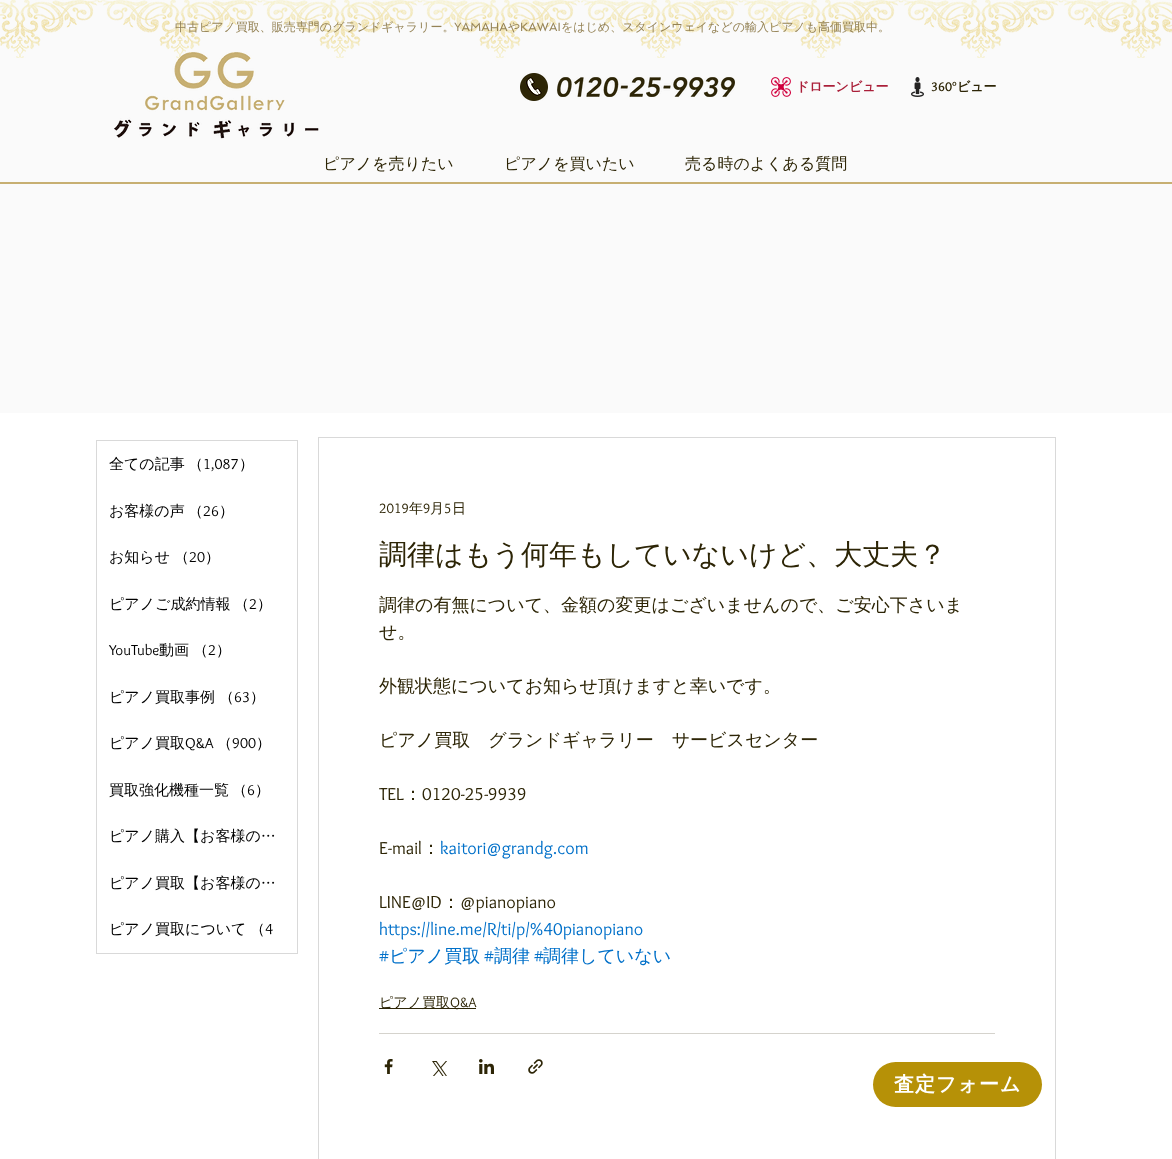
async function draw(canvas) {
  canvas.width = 1172;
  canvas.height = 1159;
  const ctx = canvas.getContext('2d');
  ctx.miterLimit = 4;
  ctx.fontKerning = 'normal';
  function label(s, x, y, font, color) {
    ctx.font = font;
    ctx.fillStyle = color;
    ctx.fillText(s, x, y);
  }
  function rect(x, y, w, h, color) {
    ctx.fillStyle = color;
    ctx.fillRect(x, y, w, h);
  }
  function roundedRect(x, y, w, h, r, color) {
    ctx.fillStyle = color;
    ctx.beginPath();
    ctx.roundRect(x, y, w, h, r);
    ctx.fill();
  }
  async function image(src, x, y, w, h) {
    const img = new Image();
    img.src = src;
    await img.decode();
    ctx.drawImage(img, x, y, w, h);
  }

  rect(0, 0, 1172, 1159, '#fff');
  rect(0, 0, 1172, 182, '#fafafa');
  rect(0, 182, 1172, 2, '#c7af72');
  await image('assets/img1.png', 0, 0, 100, 58);
  await image('assets/img2.png', 100, 0, 160, 58);
  await image('assets/img2.png', 260, 0, 160, 58);
  await image('assets/img2.png', 420, 0, 160, 58);
  await image('assets/img2.png', 581, 0, 160, 58);
  await image('assets/img2.png', 741, 0, 160, 58);
  await image('assets/img2.png', 901, 0, 160, 58);
  await image('assets/img3.png', 1061, 0, 111, 58);
  label('中古ピアノ買取、販売専門のグランドギャラリー。', 175, 31, '500 12px WenQuanYi Zen Hei', '#958356');
  label('YAMAHA', 454, 31, '12px Spinnaker', '#958356');
  label('や', 508, 31, '500 12px WenQuanYi Zen Hei', '#958356');
  label('KAWAI', 520, 31, '12px Spinnaker', '#958356');
  label('をはじめ、スタインウェイなどの輸入ピアノも高価買取中。', 561, 31, '500 12px WenQuanYi Zen Hei', '#958356');
  await image('assets/img4.png', 114, 52, 205, 87);
  await image('assets/img5.png', 520, 73, 28, 28);
  await image('assets/img6.png', 557, 77, 178, 20);
  await image('assets/img7.png', 771, 77, 20, 20);
  label('ドローンビュー', 796, 91, 'bold 13px WenQuanYi Zen Hei', '#aa1f39');
  await image('assets/img8.png', 911, 77, 13, 20);
  label('360°', 931, 91, 'bold 13px Overlock', '#2d2506');
  label('ビュー', 957, 91, 'bold 13px WenQuanYi Zen Hei', '#2d2506');
  label('ピアノを売りたい', 323, 169, '500 16px WenQuanYi Zen Hei', '#2d2506');
  label('ピアノを買いたい', 504, 169, '500 16px WenQuanYi Zen Hei', '#2d2506');
  label('売る時のよくある質問', 685, 169, '500 16px WenQuanYi Zen Hei', '#2d2506');
  rect(0, 184, 1172, 229, '#fafafa');
  ctx.strokeStyle = '#d9d9d9';
  ctx.strokeRect(96.5, 440.5, 201, 513);
  label('全ての記事', 109, 469, '500 15px WenQuanYi Zen Hei', '#000');
  label('（', 188, 469, '500 15px WenQuanYi Zen Hei', '#000');
  label('1,087', 203, 469, '15px Overlock', '#000');
  label('）', 239, 469, '500 15px WenQuanYi Zen Hei', '#000');
  label('お客様の声', 109, 516, '500 15px WenQuanYi Zen Hei', '#000');
  label('（', 188, 516, '500 15px WenQuanYi Zen Hei', '#000');
  label('26', 203, 516, '15px Overlock', '#000');
  label('）', 219, 516, '500 15px WenQuanYi Zen Hei', '#000');
  label('お知らせ', 109, 562, '500 15px WenQuanYi Zen Hei', '#000');
  label('（', 174, 562, '500 15px WenQuanYi Zen Hei', '#000');
  label('20', 189, 562, '15px Overlock', '#000');
  label('）', 205, 562, '500 15px WenQuanYi Zen Hei', '#000');
  label('ピアノご成約情報', 109, 609, '500 15px WenQuanYi Zen Hei', '#000');
  label('（', 234, 609, '500 15px WenQuanYi Zen Hei', '#000');
  label('2', 249, 609, '15px Overlock', '#000');
  label('）', 257, 609, '500 15px WenQuanYi Zen Hei', '#000');
  label('YouTube', 109, 655, '15px Overlock', '#000');
  label('動画', 159, 655, '500 15px WenQuanYi Zen Hei', '#000');
  label('（', 193, 655, '500 15px WenQuanYi Zen Hei', '#000');
  label('2', 208, 655, '15px Overlock', '#000');
  label('）', 216, 655, '500 15px WenQuanYi Zen Hei', '#000');
  label('ピアノ買取事例', 109, 702, '500 15px WenQuanYi Zen Hei', '#000');
  label('（', 219, 702, '500 15px WenQuanYi Zen Hei', '#000');
  label('63', 234, 702, '15px Overlock', '#000');
  label('）', 250, 702, '500 15px WenQuanYi Zen Hei', '#000');
  label('ピアノ買取', 109, 748, '500 15px WenQuanYi Zen Hei', '#000');
  label('Q&A', 185, 748, '15px Overlock', '#000');
  label('（', 217, 748, '500 15px WenQuanYi Zen Hei', '#000');
  label('900', 232, 748, '15px Overlock', '#000');
  label('）', 256, 748, '500 15px WenQuanYi Zen Hei', '#000');
  label('買取強化機種一覧', 109, 795, '500 15px WenQuanYi Zen Hei', '#000');
  label('（', 232, 795, '500 15px WenQuanYi Zen Hei', '#000');
  label('6', 247, 795, '15px Overlock', '#000');
  label('）', 255, 795, '500 15px WenQuanYi Zen Hei', '#000');
  label('ピアノ購入【お客様の…', 109, 841, '500 15px WenQuanYi Zen Hei', '#000');
  label('ピアノ買取【お客様の…', 109, 888, '500 15px WenQuanYi Zen Hei', '#000');
  label('ピアノ買取について', 109, 934, '500 15px WenQuanYi Zen Hei', '#000');
  label('（', 250, 934, '500 15px WenQuanYi Zen Hei', '#000');
  label('4', 265, 934, '15px Overlock', '#000');
  ctx.strokeRect(318.5, 437.5, 737, 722);
  label('2019', 379, 513, '14px Overlock', '#2d2506');
  label('年', 409, 513, '500 14px WenQuanYi Zen Hei', '#2d2506');
  label('9', 423, 513, '14px Overlock', '#2d2506');
  label('月', 430, 513, '500 14px WenQuanYi Zen Hei', '#2d2506');
  label('5', 444, 513, '14px Overlock', '#2d2506');
  label('日', 452, 513, '500 14px WenQuanYi Zen Hei', '#2d2506');
  label('調律はもう何年もしていないけど、大丈夫？', 379, 564, '500 28px WenQuanYi Zen Hei', '#2d2506');
  label('調律の有無について、金額の変更はございませんので、ご安心下さいま', 379, 611, '500 18px WenQuanYi Zen Hei', '#2d2506');
  label('せ。', 379, 638, '500 18px WenQuanYi Zen Hei', '#2d2506');
  label('外観状態についてお知らせ頂けますと幸いです。', 379, 692, '500 18px WenQuanYi Zen Hei', '#2d2506');
  label('ピアノ買取　グランドギャラリー　サービスセンター', 379, 746, '500 18px WenQuanYi Zen Hei', '#2d2506');
  label('TEL', 379, 800, '18px Overlock', '#2d2506');
  label('：', 404, 800, '500 18px WenQuanYi Zen Hei', '#2d2506');
  label('0120-25-9939', 422, 800, '18px Overlock', '#2d2506');
  label('E-mail', 379, 854, '18px Overlock', '#2d2506');
  label('：', 422, 854, '500 18px WenQuanYi Zen Hei', '#2d2506');
  label('kaitori@grandg.com', 440, 854, '18px Overlock', '#0070c9');
  label('LINE@ID', 379, 908, '18px Overlock', '#2d2506');
  label('：', 442, 908, '500 18px WenQuanYi Zen Hei', '#2d2506');
  label('@pianopiano', 460, 908, '18px Overlock', '#2d2506');
  label('https://line.me/R/ti/p/%40pianopiano', 379, 935, '18px Overlock', '#0070c9');
  label('#', 379, 962, '18px Overlock', '#0070c9');
  label('ピアノ買取', 389, 962, '500 18px WenQuanYi Zen Hei', '#0070c9');
  label('#', 484, 962, '18px Overlock', '#0070c9');
  label('調律', 494, 962, '500 18px WenQuanYi Zen Hei', '#0070c9');
  label('#', 534, 962, '18px Overlock', '#0070c9');
  label('調律していない', 543, 962, '500 18px WenQuanYi Zen Hei', '#0070c9');
  rect(379, 1008, 97, 1, '#2d2506');
  label('ピアノ買取', 379, 1007, '500 14px WenQuanYi Zen Hei', '#2d2506');
  label('Q&A', 450, 1007, '14px Overlock', '#2d2506');
  rect(379, 1033, 616, 1, '#d5d3cd');
  await image('assets/img9.png', 384, 1059, 9, 15);
  await image('assets/img10.png', 432, 1061, 15, 15);
  await image('assets/img11.png', 479, 1059, 15, 15);
  await image('assets/img12.png', 528, 1059, 15, 15);
  roundedRect(873, 1062, 169, 45, 22.5, '#b69107');
  ctx.letterSpacing = '1px';
  label('査定フォーム', 894, 1091, 'bold 20px WenQuanYi Zen Hei', '#fff');
}

draw(document.querySelector('canvas'));
